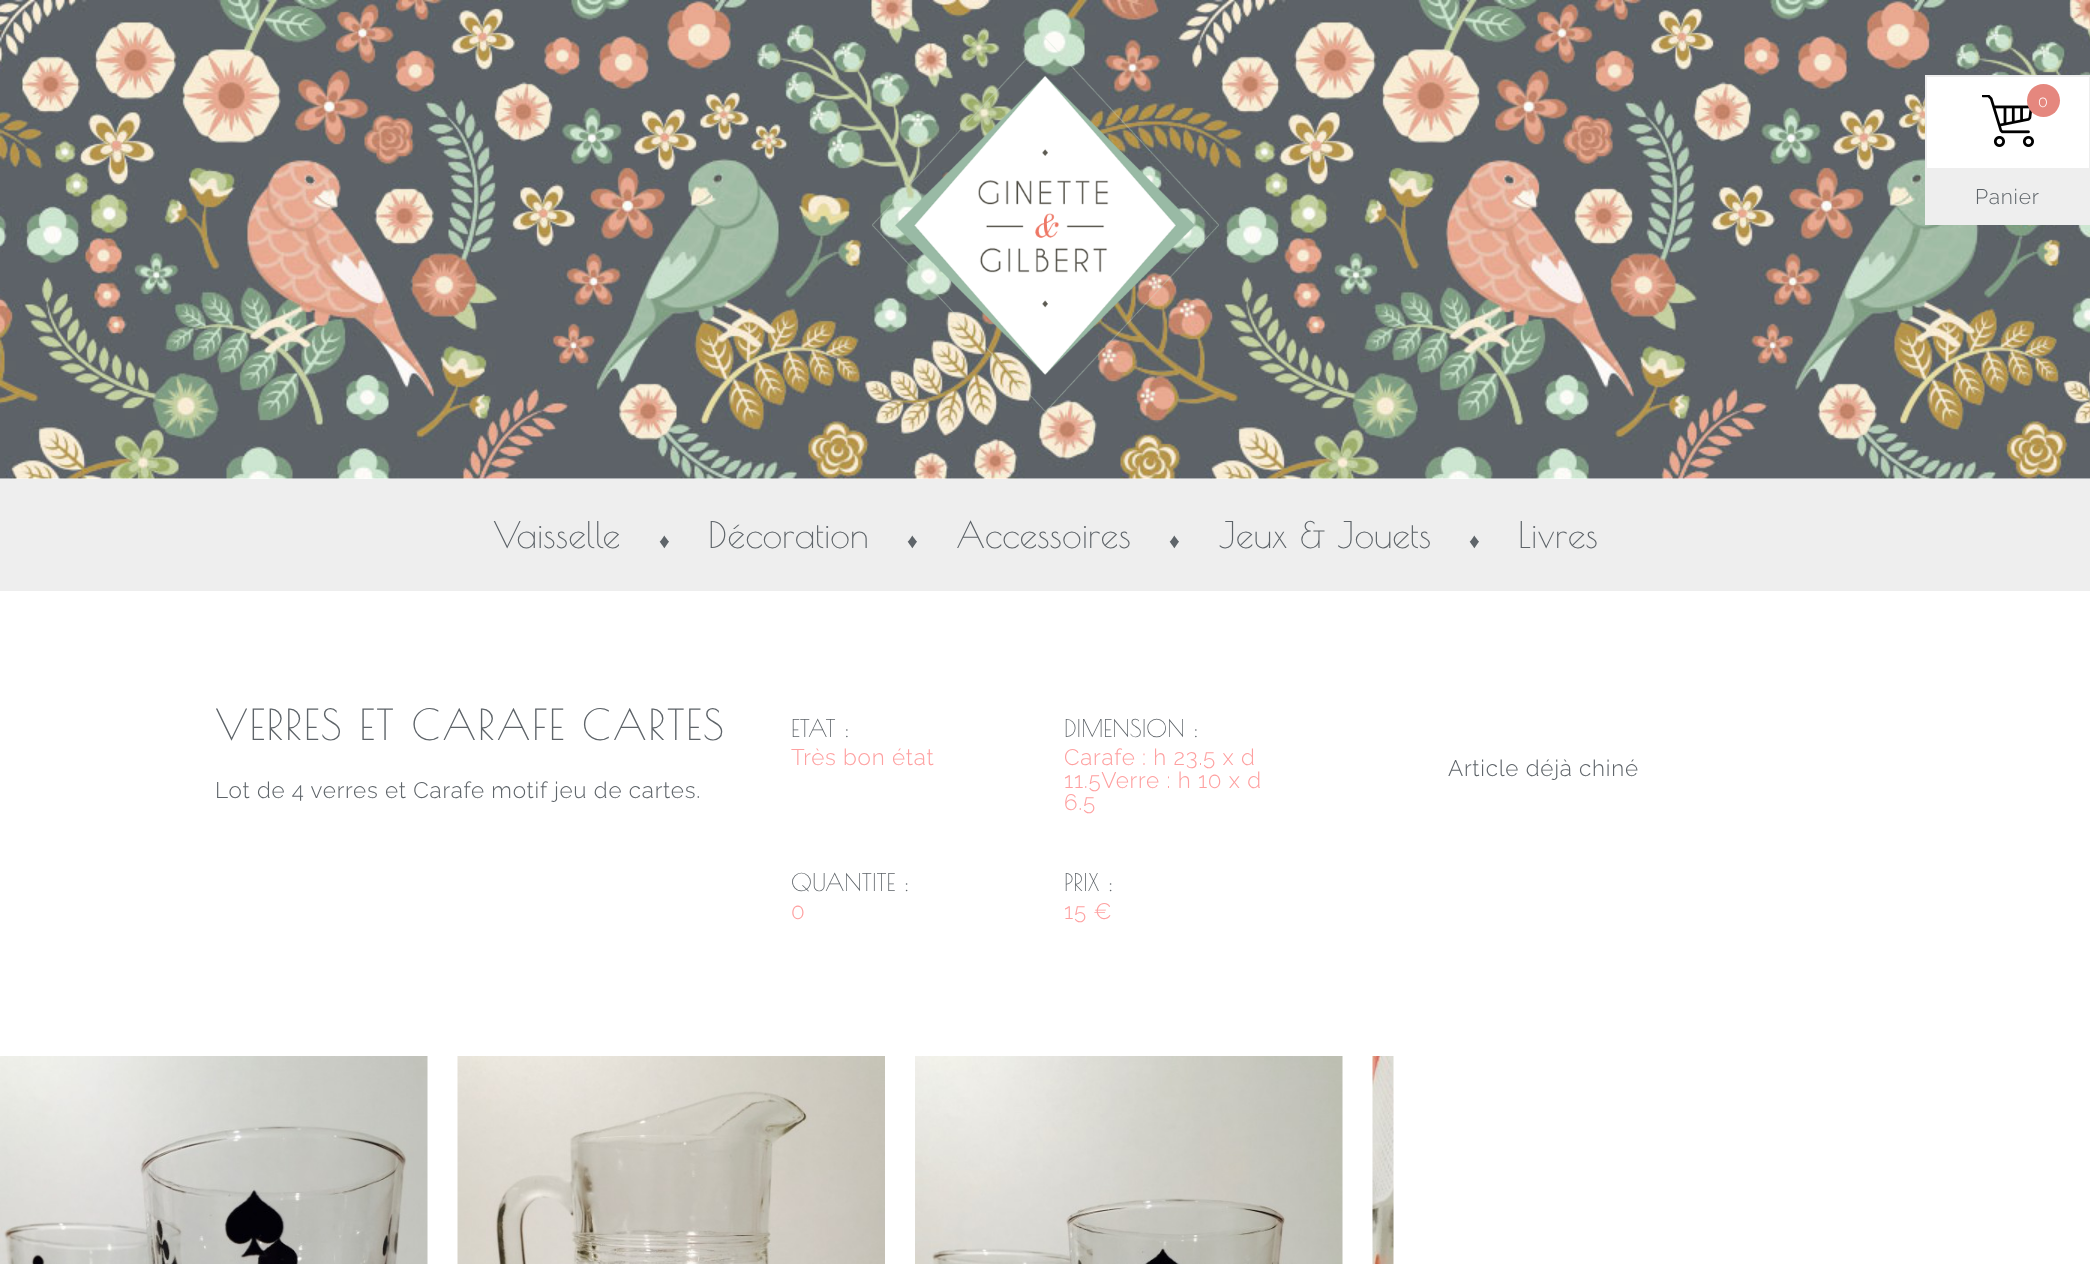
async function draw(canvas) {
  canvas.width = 2090;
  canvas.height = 1264;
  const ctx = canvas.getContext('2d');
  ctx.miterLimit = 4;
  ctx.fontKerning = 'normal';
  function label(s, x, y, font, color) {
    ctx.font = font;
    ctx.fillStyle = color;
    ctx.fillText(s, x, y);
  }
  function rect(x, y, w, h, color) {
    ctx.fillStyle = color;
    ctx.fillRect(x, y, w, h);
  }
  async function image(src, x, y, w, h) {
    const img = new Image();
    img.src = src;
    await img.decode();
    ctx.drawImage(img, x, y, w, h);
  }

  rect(0, 0, 2090, 1264, '#fff');
  await image('assets/img2.png', 0, 0, 2090, 479);
  rect(1927, 77, 162, 91, '#fff');
  ctx.strokeStyle = '#eee';
  ctx.lineWidth = 2;
  ctx.strokeRect(1926, 76, 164, 148);
  await image('assets/img1.png', 1982, 95, 52, 52);
  ctx.fillStyle = '#e5877e';
  ctx.beginPath();
  ctx.arc(2043.5, 100.5, 16.5, 0, 2 * Math.PI);
  ctx.fill();
  label('0', 2038, 107, '300 16px Raleway', '#fff');
  rect(1927, 168, 162, 55, '#eee');
  ctx.letterSpacing = '0.75px';
  label('Panier', 1975, 204, '300 21px Raleway', '#5e6469');
  await image('assets/img3.png', 872, 38, 347, 374);
  rect(0, 479, 2090, 112, '#eee');
  ctx.letterSpacing = '0px';
  label('Vaisselle', 493, 548, '36px Poiret One', '#5e6469');
  label('♦', 659, 548, '21px Liberation Serif', '#5e6469');
  label('Décoration', 708, 548, '36px Poiret One', '#5e6469');
  label('♦', 907, 548, '21px Liberation Serif', '#5e6469');
  label('Accessoires', 956, 548, '36px Poiret One', '#5e6469');
  label('♦', 1169, 548, '21px Liberation Serif', '#5e6469');
  label('Jeux & Jouets', 1219, 548, '36px Poiret One', '#5e6469');
  label('♦', 1469, 548, '21px Liberation Serif', '#5e6469');
  label('Livres', 1518, 548, '36px Poiret One', '#5e6469');
  ctx.letterSpacing = '1.5px';
  label('VERRES ET CARAFE CARTES', 215, 740, '42px Poiret One', '#5e6469');
  ctx.letterSpacing = '0.75px';
  label('Lot de 4 verres et Carafe motif jeu de cartes.', 215, 798, '300 22.5px Raleway', '#5e6469');
  ctx.letterSpacing = '0px';
  label('ETAT :', 791, 737, '24px Poiret One', '#5e6469');
  ctx.letterSpacing = '0.75px';
  label('Très bon état', 791, 765, '300 22.5px Raleway', '#fea0a0');
  ctx.letterSpacing = '0px';
  label('DIMENSION :', 1064, 737, '24px Poiret One', '#5e6469');
  ctx.letterSpacing = '0.75px';
  label('Carafe : h 23.5 x d', 1064, 765, '300 22.5px Raleway', '#fea0a0');
  label('11.5Verre : h 10 x d', 1064, 788, '300 22.5px Raleway', '#fea0a0');
  label('6.5', 1064, 810, '300 22.5px Raleway', '#fea0a0');
  ctx.letterSpacing = '0px';
  label('QUANTITE :', 791, 891, '24px Poiret One', '#5e6469');
  ctx.letterSpacing = '0.75px';
  label('0', 791, 919, '300 22.5px Raleway', '#fea0a0');
  ctx.letterSpacing = '0px';
  label('PRIX :', 1064, 891, '24px Poiret One', '#5e6469');
  ctx.letterSpacing = '0.75px';
  label('15 €', 1064, 919, '300 22.5px Raleway', '#fea0a0');
  label('Article déjà chiné', 1448, 776, '300 22.5px Raleway', '#5e6469');
  await image('assets/img4.png', 0, 1056, 428, 208);
  await image('assets/img5.png', 457, 1056, 428, 208);
  await image('assets/img6.png', 915, 1056, 428, 208);
  await image('assets/img7.png', 1372, 1056, 22, 208);
}

draw(document.querySelector('canvas'));
